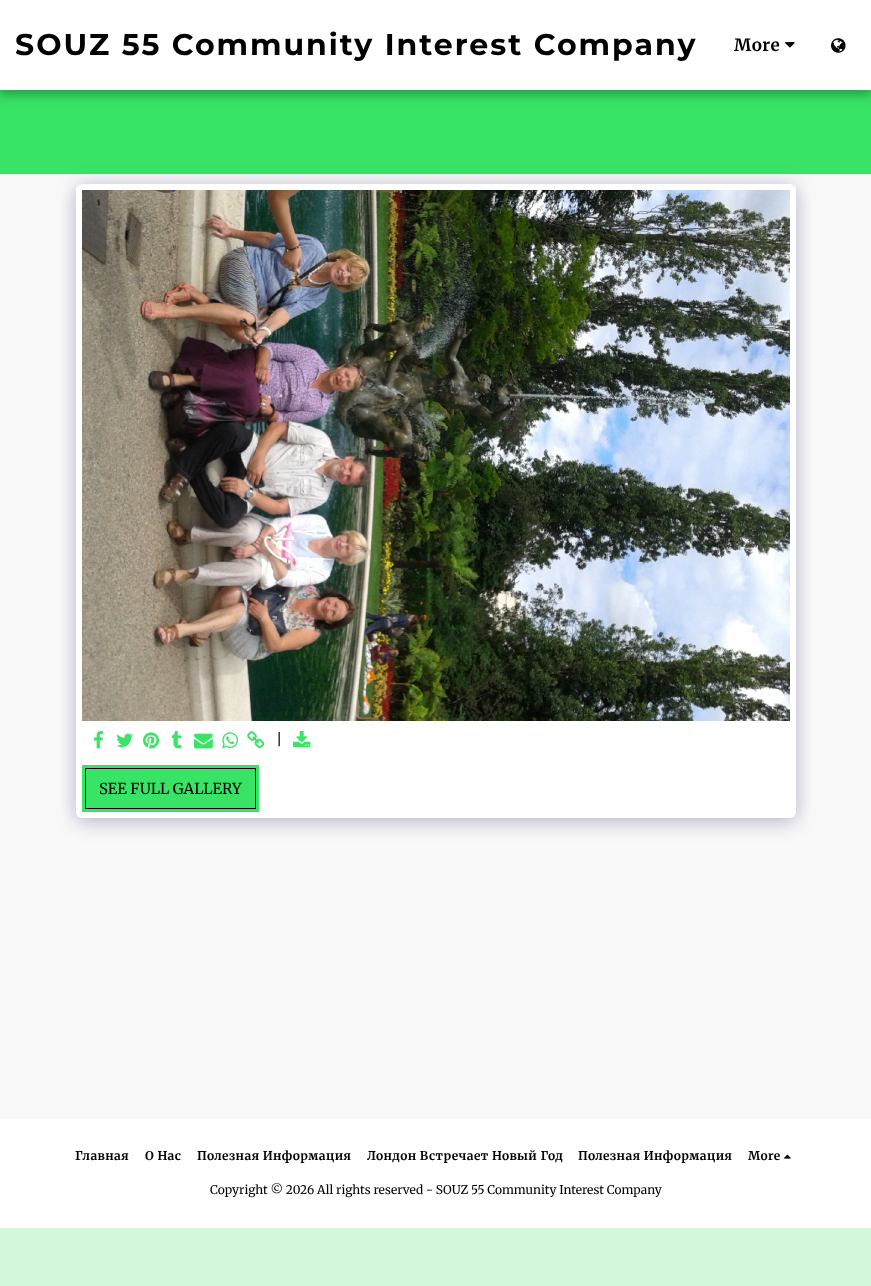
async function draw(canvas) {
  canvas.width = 871;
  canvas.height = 1286;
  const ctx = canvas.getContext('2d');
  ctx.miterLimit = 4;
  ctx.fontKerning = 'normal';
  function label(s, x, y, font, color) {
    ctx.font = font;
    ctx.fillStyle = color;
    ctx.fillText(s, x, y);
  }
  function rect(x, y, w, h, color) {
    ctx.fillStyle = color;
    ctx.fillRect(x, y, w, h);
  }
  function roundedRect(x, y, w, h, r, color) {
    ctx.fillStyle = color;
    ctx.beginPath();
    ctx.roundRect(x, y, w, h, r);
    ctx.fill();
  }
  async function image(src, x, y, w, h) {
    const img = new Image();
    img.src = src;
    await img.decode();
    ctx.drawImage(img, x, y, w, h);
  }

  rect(0, 0, 871, 1286, '#d2f8dc');
  rect(0, 90, 871, 84, '#39e366');
  ctx.fillStyle = '#00000059';
  ctx.filter = 'blur(6px)';
  ctx.beginPath();
  ctx.rect(-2, 0, 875, 94);
  ctx.fill();
  ctx.filter = 'none';
  rect(0, 0, 871, 90, '#fff');
  ctx.letterSpacing = '2px';
  label('SOUZ 55 Community Interest Company', 15, 55, 'bold 30px Montserrat', '#000');
  ctx.letterSpacing = '0.5px';
  label('More', 734, 51, 'bold 17px Merriweather', '#000');
  await image('assets/img1.png', 785, 42, 10, 6);
  await image('assets/img2.png', 831, 38, 15, 15);
  rect(0, 174, 871, 945, '#f9f9f9');
  ctx.fillStyle = '#4d3f7a66';
  ctx.filter = 'blur(10px)';
  ctx.beginPath();
  ctx.roundRect(76, 187, 720, 634, 6);
  ctx.fill();
  ctx.filter = 'none';
  roundedRect(76, 184, 720, 634, 6, '#fff');
  await image('assets/img3.png', 82, 190, 708, 531);
  await image('assets/img4.png', 94, 731, 10, 18);
  await image('assets/img5.png', 116, 733, 17, 15);
  await image('assets/img6.png', 143, 732, 16, 17);
  await image('assets/img7.png', 171, 731, 11, 18);
  await image('assets/img8.png', 194, 733, 19, 16);
  await image('assets/img9.png', 222, 732, 16, 17);
  await image('assets/img10.png', 247, 731, 18, 18);
  ctx.letterSpacing = '0px';
  label('|', 276, 745, '15px Merriweather', '#000');
  await image('assets/img11.png', 293, 731, 18, 17);
  rect(82, 765, 177, 47, '#39e366');
  ctx.strokeStyle = '#000';
  ctx.strokeRect(85.5, 768.5, 170, 40);
  label('SEE FULL GALLERY', 99, 794, '15px Merriweather', '#000');
  rect(0, 1119, 871, 109, '#fff');
  ctx.letterSpacing = '0.4px';
  label('Главная', 75, 1160, 'bold 12px Merriweather', '#000');
  label('О Нас', 145, 1160, 'bold 12px Merriweather', '#000');
  label('Полезная Информация', 197, 1160, 'bold 12px Merriweather', '#000');
  label('Лондон Встречает Новый Год', 367, 1160, 'bold 12px Merriweather', '#000');
  label('Полезная Информация', 578, 1160, 'bold 12px Merriweather', '#000');
  label('More', 748, 1160, 'bold 12px Merriweather', '#000');
  await image('assets/img12.png', 784, 1154, 7, 5);
  ctx.letterSpacing = '0px';
  label('Copyright © 2026 All rights reserved - SOUZ 55 Community Interest Company', 210, 1194, '12px Merriweather', '#000');
}

draw(document.querySelector('canvas'));
